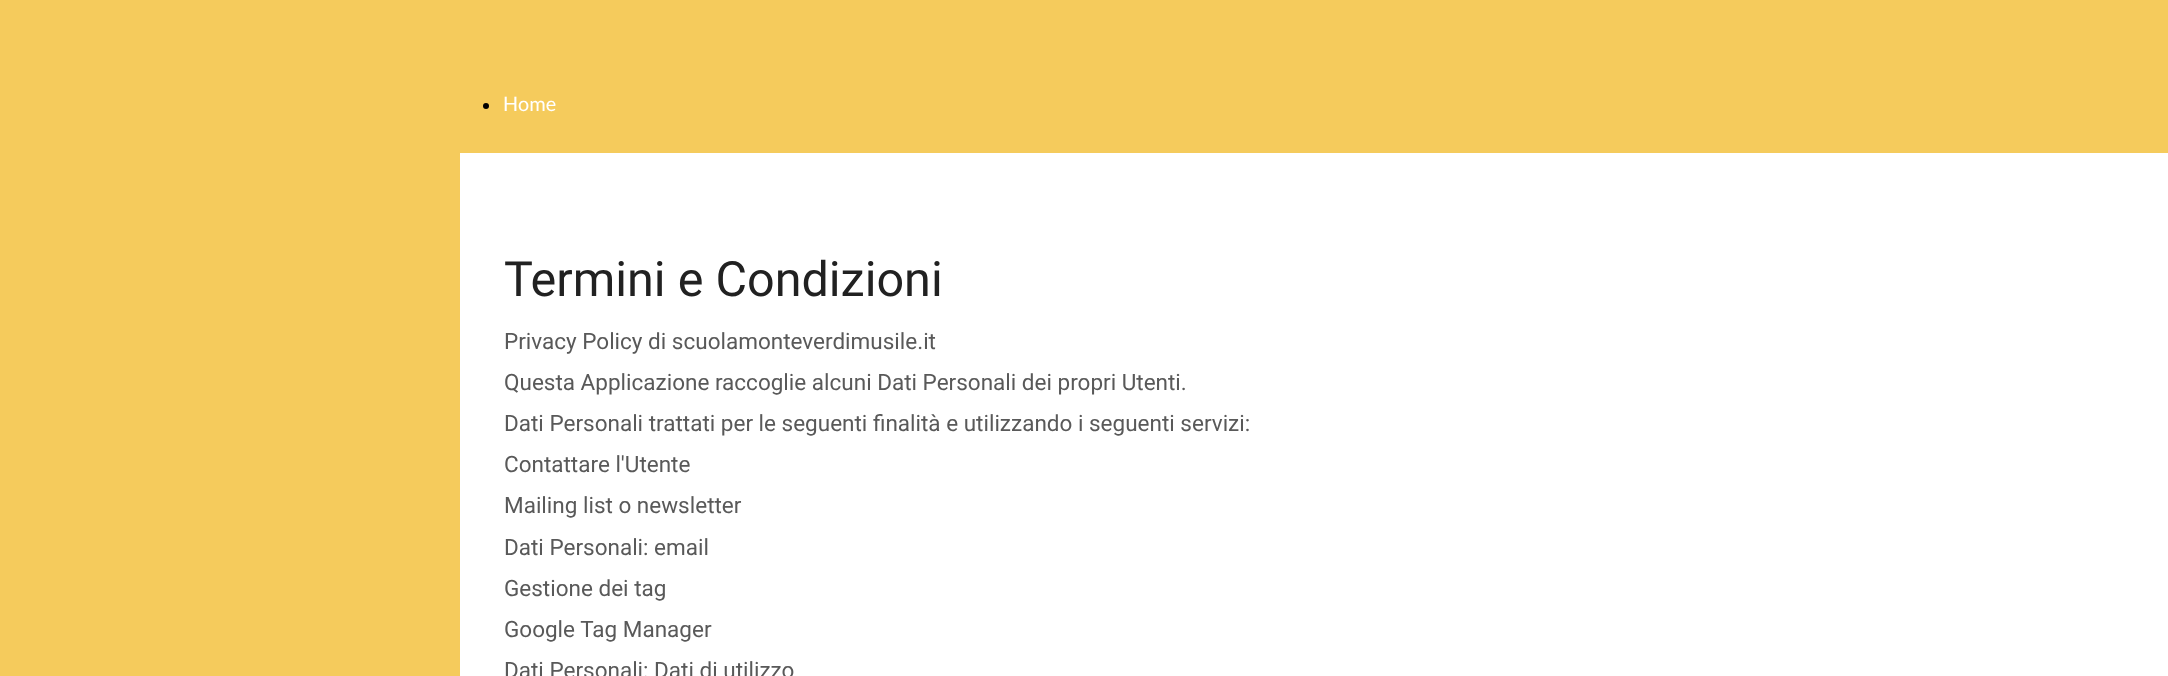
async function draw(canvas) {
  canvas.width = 2168;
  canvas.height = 676;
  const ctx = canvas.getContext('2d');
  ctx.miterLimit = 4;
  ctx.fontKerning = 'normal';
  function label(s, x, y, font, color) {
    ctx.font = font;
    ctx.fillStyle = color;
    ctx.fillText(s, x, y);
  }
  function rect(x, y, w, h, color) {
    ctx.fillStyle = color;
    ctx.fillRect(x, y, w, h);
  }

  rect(0, 0, 2168, 676, '#f5cb5c');
  ctx.fillStyle = '#000';
  ctx.beginPath();
  ctx.arc(486, 106, 3, 0, 2 * Math.PI);
  ctx.fill();
  label('Home', 503, 111, '20px Lato', '#fff');
  rect(460, 153, 1708, 523, '#fff');
  label('Termini e Condizioni', 504, 296, '48.5px Roboto', '#212121');
  label('Privacy Policy di scuolamonteverdimusile.it', 504, 349, '22.5px Roboto', '#595959');
  label('Questa Applicazione raccoglie alcuni Dati Personali dei propri Utenti.', 504, 390, '22.5px Roboto', '#595959');
  label('Dati Personali trattati per le seguenti finalità e utilizzando i seguenti servizi:', 504, 431, '22.5px Roboto', '#595959');
  label('Contattare l\'Utente', 504, 472, '22.5px Roboto', '#595959');
  label('Mailing list o newsletter', 504, 513, '22.5px Roboto', '#595959');
  label('Dati Personali: email', 504, 555, '22.5px Roboto', '#595959');
  label('Gestione dei tag', 504, 596, '22.5px Roboto', '#595959');
  label('Google Tag Manager', 504, 637, '22.5px Roboto', '#595959');
  label('Dati Personali: Dati di utilizzo', 504, 678, '22.5px Roboto', '#595959');
}

draw(document.querySelector('canvas'));
